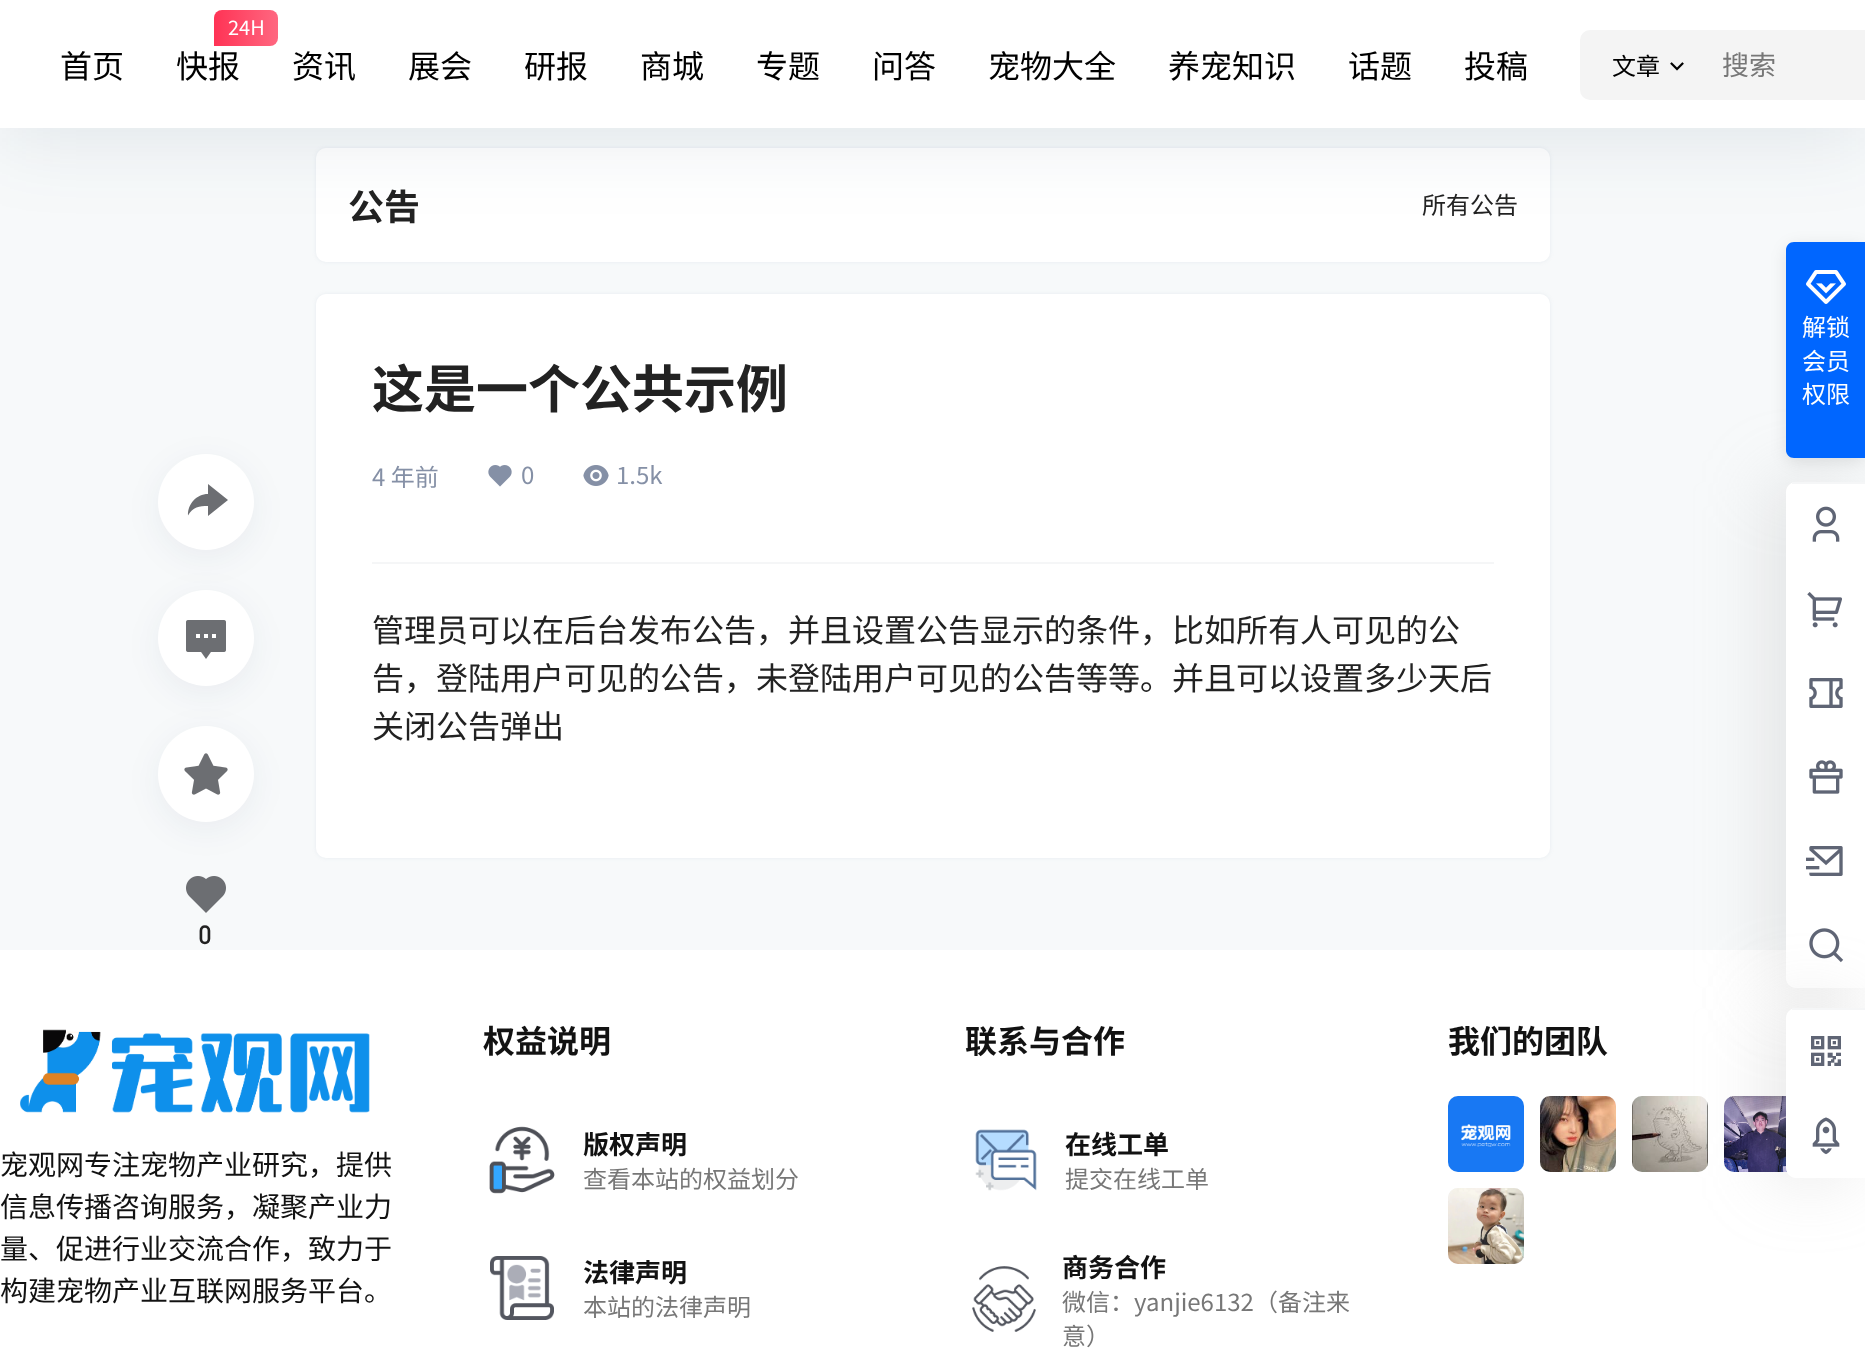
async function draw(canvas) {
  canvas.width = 1865;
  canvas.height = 1357;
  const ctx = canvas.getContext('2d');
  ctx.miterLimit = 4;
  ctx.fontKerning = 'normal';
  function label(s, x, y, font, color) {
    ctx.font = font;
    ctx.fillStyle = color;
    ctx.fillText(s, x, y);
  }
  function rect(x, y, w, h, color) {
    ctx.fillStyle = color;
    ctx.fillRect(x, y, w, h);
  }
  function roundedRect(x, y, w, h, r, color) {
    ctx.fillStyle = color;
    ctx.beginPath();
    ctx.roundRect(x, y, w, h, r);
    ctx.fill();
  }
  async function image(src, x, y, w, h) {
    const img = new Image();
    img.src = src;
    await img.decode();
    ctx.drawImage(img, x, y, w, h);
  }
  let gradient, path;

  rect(0, 0, 1865, 1357, '#f7f9fa');
  ctx.fillStyle = '#627c991a';
  ctx.filter = 'blur(2px)';
  ctx.beginPath();
  ctx.roundRect(316, 148, 1234, 114, 10);
  ctx.fill();
  ctx.filter = 'none';
  roundedRect(316, 148, 1234, 114, 10, '#fff');
  ctx.fillStyle = '#113a5d1a';
  ctx.filter = 'blur(40px)';
  ctx.beginPath();
  ctx.rect(0, 10, 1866, 128);
  ctx.fill();
  ctx.filter = 'none';
  rect(0, 0, 1865, 128, '#fff');
  label('首页', 60, 78, '32px Noto Sans CJK SC', '#000');
  gradient = ctx.createLinearGradient(214, 27, 278, 27);
  gradient.addColorStop(0, '#f35');
  gradient.addColorStop(1, '#ff6780');
  ctx.fillStyle = gradient;
  ctx.beginPath();
  ctx.roundRect(214, 10, 64, 36, [8, 8, 8, 0]);
  ctx.fill();
  label('24H', 228, 35, '20px Noto Sans CJK SC', '#fff');
  label('快报', 176, 78, '32px Noto Sans CJK SC', '#000');
  label('资讯', 292, 78, '32px Noto Sans CJK SC', '#000');
  label('展会', 408, 78, '32px Noto Sans CJK SC', '#000');
  label('研报', 524, 78, '32px Noto Sans CJK SC', '#000');
  label('商城', 640, 78, '32px Noto Sans CJK SC', '#000');
  label('专题', 756, 78, '32px Noto Sans CJK SC', '#000');
  label('问答', 872, 78, '32px Noto Sans CJK SC', '#000');
  label('宠物大全', 988, 78, '32px Noto Sans CJK SC', '#000');
  label('养宠知识', 1168, 78, '32px Noto Sans CJK SC', '#000');
  label('话题', 1348, 78, '32px Noto Sans CJK SC', '#000');
  label('投稿', 1464, 78, '32px Noto Sans CJK SC', '#000');
  roundedRect(1580, 30, 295, 70, 10, '#f4f4f4');
  label('文章', 1612, 75, '24px Noto Sans CJK SC', '#000');
  await image('assets/img1.png', 1670, 62, 14, 9);
  label('搜索', 1722, 75, '27px Noto Sans CJK SC', '#777');
  label('公告', 348, 220, 'bold 36px Noto Sans CJK SC', '#222');
  label('所有公告', 1422, 214, '24px Noto Sans CJK SC', '#222');
  ctx.fillStyle = '#627c991a';
  ctx.filter = 'blur(2px)';
  ctx.beginPath();
  ctx.roundRect(316, 294, 1234, 564, 10);
  ctx.fill();
  ctx.filter = 'none';
  roundedRect(316, 294, 1234, 564, 10, '#fff');
  rect(372, 562, 1122, 2, '#f5f6f7');
  label('这是一个公共示例', 372, 408, 'bold 52px Noto Sans CJK SC', '#222');
  label('4 年前', 372, 486, '24px Noto Sans CJK SC', '#8590a6');
  await image('assets/img2.png', 488, 465, 24, 22);
  label('0', 521, 484, '24px Noto Sans CJK SC', '#8590a6');
  await image('assets/img3.png', 583, 465, 26, 21);
  label('1.5k', 616, 484, '24px Noto Sans CJK SC', '#8590a6');
  label('管理员可以在后台发布公告，并且设置公告显示的条件，比如所有人可见的公', 372, 642, '32px Noto Sans CJK SC', '#222');
  label('告，登陆用户可见的公告，未登陆用户可见的公告等等。并且可以设置多少天后', 372, 690, '32px Noto Sans CJK SC', '#222');
  label('关闭公告弹出', 372, 738, '32px Noto Sans CJK SC', '#222');
  ctx.fillStyle = '#0d275b0f';
  ctx.filter = 'blur(16px)';
  ctx.beginPath();
  ctx.roundRect(158, 462, 96, 96, 48);
  ctx.fill();
  ctx.filter = 'none';
  ctx.fillStyle = '#fff';
  ctx.beginPath();
  ctx.arc(206, 502, 48, 0, 2 * Math.PI);
  ctx.fill();
  ctx.fillStyle = '#6c6e72';
  path = new Path2D('M208 506C199.5 506 192.5 507 188 515.5C187.5 504 196.5 494 208 494V484L228 500L208 516Z');
  ctx.fill(path);
  ctx.fillStyle = '#0d275b0f';
  ctx.filter = 'blur(16px)';
  ctx.beginPath();
  ctx.roundRect(158, 598, 96, 96, 48);
  ctx.fill();
  ctx.filter = 'none';
  ctx.fillStyle = '#fff';
  ctx.beginPath();
  ctx.arc(206, 638, 48, 0, 2 * Math.PI);
  ctx.fill();
  await image('assets/img4.png', 186, 620, 40, 39);
  await image('assets/img6.png', 186, 876, 40, 37);
  ctx.fillStyle = '#0d275b0f';
  ctx.filter = 'blur(16px)';
  ctx.beginPath();
  ctx.roundRect(158, 734, 96, 96, 48);
  ctx.fill();
  ctx.filter = 'none';
  ctx.fillStyle = '#fff';
  ctx.beginPath();
  ctx.arc(206, 774, 48, 0, 2 * Math.PI);
  ctx.fill();
  await image('assets/img5.png', 184, 753, 44, 42);
  label('0', 198, 944, '500 26px DIN', '#222');
  rect(0, 950, 1865, 407, '#fff');
  ctx.fillStyle = '#b5b5b552';
  ctx.filter = 'blur(35px)';
  ctx.beginPath();
  ctx.roundRect(1770, 482, 80, 506, 10);
  ctx.fill();
  ctx.filter = 'none';
  ctx.fillStyle = '#fff';
  path = new Path2D('M1796 482H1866V988H1796C1790.5 988 1786 983.5 1786 978V492C1786 486.5 1790.5 482 1796 482Z');
  ctx.fill(path);
  rect(1792, 482, 73, 2, '#f5f6f7');
  ctx.fillStyle = '#0000001a';
  ctx.filter = 'blur(8px)';
  ctx.beginPath();
  ctx.roundRect(1786, 246, 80, 216, 10);
  ctx.fill();
  ctx.filter = 'none';
  ctx.fillStyle = '#06f';
  path = new Path2D('M1794 242H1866V458H1794C1789.5 458 1786 454.5 1786 450V250C1786 245.5 1789.5 242 1794 242Z');
  ctx.fill(path);
  await image('assets/img7.png', 1806, 270, 40, 34);
  label('解锁', 1802, 336, '24px Noto Sans CJK SC', '#fff');
  label('会员', 1802, 370, '24px Noto Sans CJK SC', '#fff');
  label('权限', 1802, 403, '24px Noto Sans CJK SC', '#fff');
  await image('assets/img8.png', 1812, 506, 28, 36);
  await image('assets/img9.png', 1807, 592, 35, 36);
  await image('assets/img10.png', 1809, 678, 34, 30);
  await image('assets/img11.png', 1809, 760, 34, 34);
  await image('assets/img12.png', 1806, 846, 37, 30);
  await image('assets/img13.png', 1809, 928, 35, 35);
  roundedRect(1632, 1096, 76, 76, 10, '#eee');
  await image('assets/img22.png', 1632, 1096, 76, 76);
  roundedRect(1724, 1096, 76, 76, 10, '#eee');
  await image('assets/img23.png', 1724, 1096, 63, 76);
  ctx.fillStyle = '#b5b5b552';
  ctx.filter = 'blur(35px)';
  ctx.beginPath();
  ctx.roundRect(1770, 1008, 80, 170, 10);
  ctx.fill();
  ctx.filter = 'none';
  ctx.fillStyle = '#fff';
  path = new Path2D('M1796 1008H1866V1178H1796C1790.5 1178 1786 1173.5 1786 1168V1018C1786 1012.5 1790.5 1008 1796 1008Z');
  ctx.fill(path);
  rect(1792, 1008, 73, 2, '#f5f6f7');
  await image('assets/img14.png', 1811, 1036, 30, 30);
  await image('assets/img15.png', 1812, 1117, 28, 38);
  label('权益说明', 483, 1053, 'bold 32px Noto Sans CJK SC', '#121212');
  await image('assets/img16.png', 489, 1126, 66, 68);
  label('版权声明', 583, 1154, 'bold 26px Noto Sans CJK SC', '#121212');
  label('查看本站的权益划分', 583, 1188, '24px Noto Sans CJK SC', '#777');
  await image('assets/img17.png', 490, 1256, 64, 64);
  label('法律声明', 583, 1282, 'bold 26px Noto Sans CJK SC', '#121212');
  label('本站的法律声明', 583, 1316, '24px Noto Sans CJK SC', '#777');
  label('联系与合作', 965, 1053, 'bold 32px Noto Sans CJK SC', '#121212');
  await image('assets/img18.png', 975, 1129, 62, 62);
  label('在线工单', 1065, 1154, 'bold 26px Noto Sans CJK SC', '#121212');
  label('提交在线工单', 1065, 1188, '24px Noto Sans CJK SC', '#777');
  await image('assets/img19.png', 972, 1266, 64, 66);
  label('商务合作', 1062, 1277, 'bold 26px Noto Sans CJK SC', '#121212');
  label('微信：yanjie6132（备注来', 1062, 1311, '24px Noto Sans CJK SC', '#777');
  label('意）', 1062, 1345, '24px Noto Sans CJK SC', '#777');
  label('我们的团队', 1448, 1053, 'bold 32px Noto Sans CJK SC', '#121212');
  roundedRect(1448, 1096, 76, 76, 10, '#eee');
  await image('assets/img20.png', 1448, 1096, 76, 76);
  roundedRect(1540, 1096, 76, 76, 10, '#eee');
  await image('assets/img21.png', 1540, 1096, 76, 76);
  roundedRect(1448, 1188, 76, 76, 10, '#eee');
  await image('assets/img24.png', 1448, 1188, 76, 76);
  await image('assets/img25.png', 20, 1029, 350, 84);
  label('宠观网专注宠物产业研究，提供', 0, 1175, '28px Noto Sans CJK SC', '#121212');
  label('信息传播咨询服务，凝聚产业力', 0, 1217, '28px Noto Sans CJK SC', '#121212');
  label('量、促进行业交流合作，致力于', 0, 1259, '28px Noto Sans CJK SC', '#121212');
  label('构建宠物产业互联网服务平台。', 0, 1301, '28px Noto Sans CJK SC', '#121212');
}

draw(document.querySelector('canvas'));
